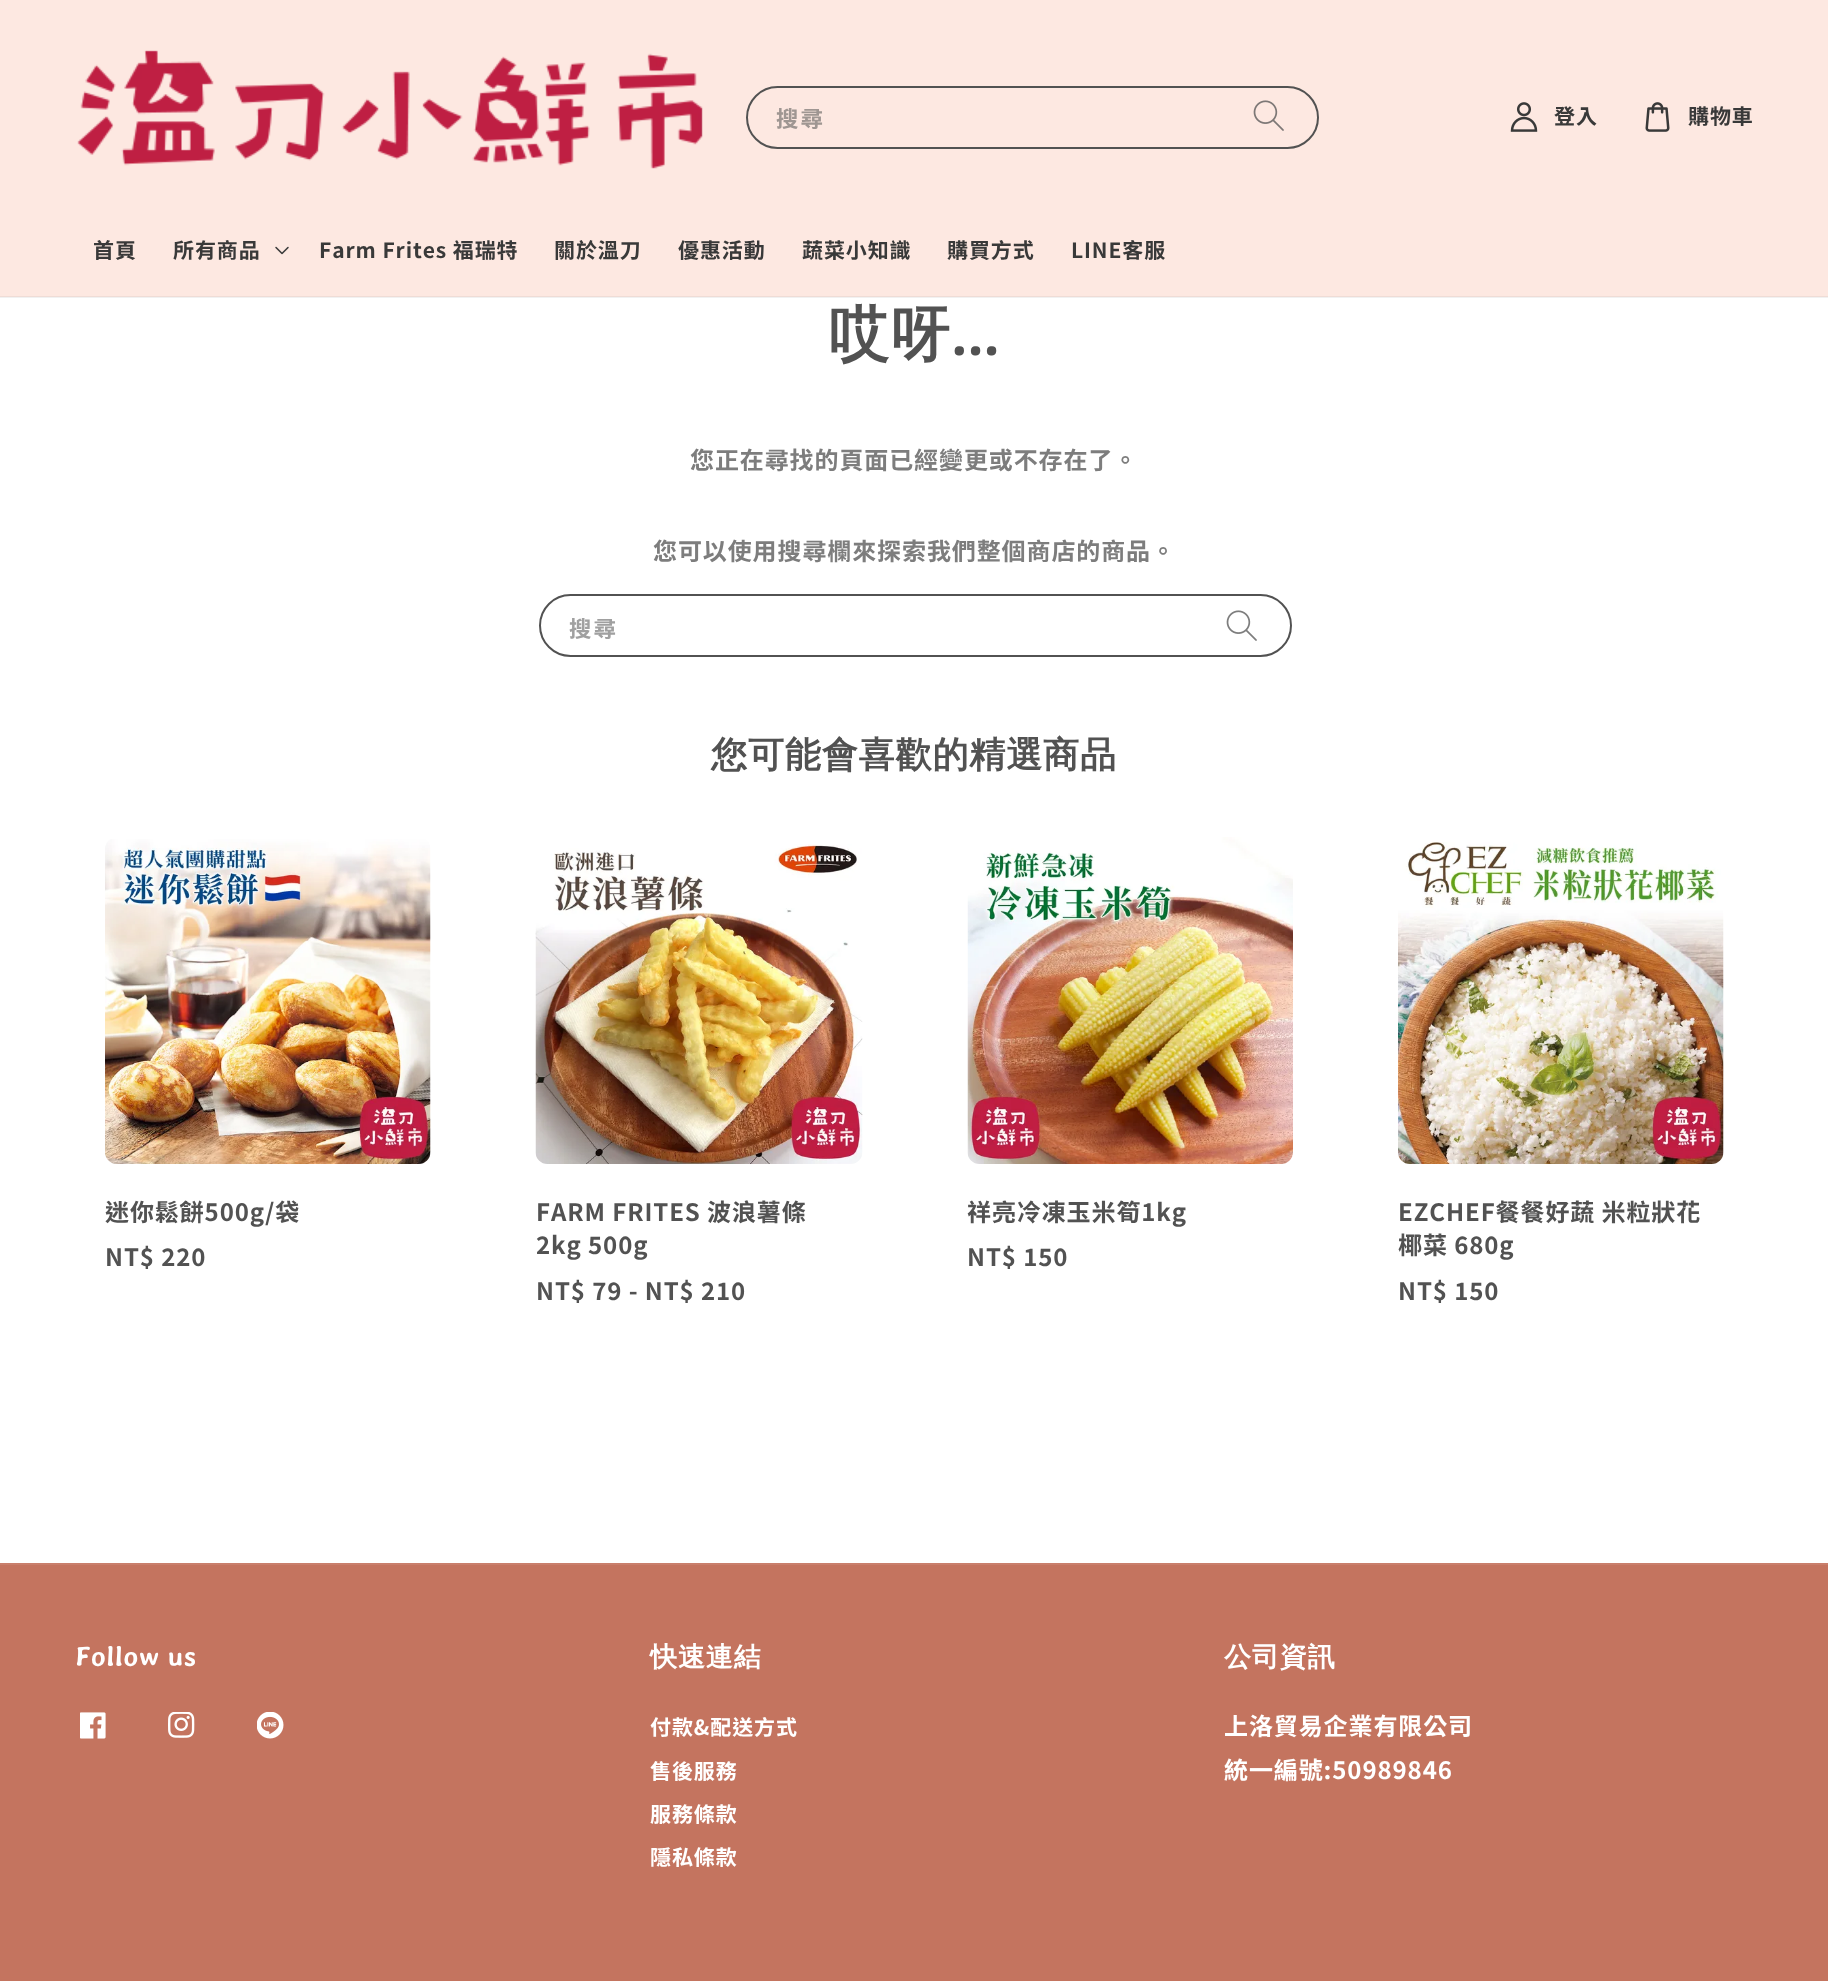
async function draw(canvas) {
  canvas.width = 1828;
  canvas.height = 1981;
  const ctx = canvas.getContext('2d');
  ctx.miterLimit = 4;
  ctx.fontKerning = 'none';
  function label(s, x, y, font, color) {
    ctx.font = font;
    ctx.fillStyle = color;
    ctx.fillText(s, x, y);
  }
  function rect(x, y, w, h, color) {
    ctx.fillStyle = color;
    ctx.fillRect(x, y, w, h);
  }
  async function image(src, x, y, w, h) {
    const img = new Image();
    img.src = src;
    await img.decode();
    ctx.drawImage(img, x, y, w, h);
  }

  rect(0, 0, 1828, 1981, '#fff');
  rect(0, 297, 1828, 1, '#f1f1f1');
  rect(0, 0, 1828, 296, '#fde8e1');
  rect(0, 296, 1828, 1, '#efdcd6');
  await image('assets/img1.png', 77, 50, 626, 119);
  ctx.beginPath();
  ctx.roundRect(747, 87, 571, 61, 30.5);
  ctx.strokeStyle = '#525252';
  ctx.lineWidth = 2;
  ctx.stroke();
  ctx.letterSpacing = '2px';
  label('搜尋', 776, 127, 'bold 22.5px Noto Sans TC', '#9f9692');
  await image('assets/img2.png', 1253, 100, 31, 31);
  await image('assets/img3.png', 1510, 102, 28, 30);
  ctx.letterSpacing = '0.9px';
  label('登入', 1554, 124, 'bold 21px Noto Sans TC', '#393939');
  await image('assets/img4.png', 1645, 102, 25, 30);
  label('購物車', 1688, 124, 'bold 21px Noto Sans TC', '#393939');
  label('首頁', 93, 258, 'bold 21px Noto Sans TC', '#393939');
  label('所有商品', 173, 258, 'bold 21px Noto Sans TC', '#393939');
  await image('assets/img5.png', 275, 246, 14, 9);
  label('Farm Frites 福瑞特', 319, 258, 'bold 21px Noto Sans TC', '#393939');
  label('關於溫刀', 554, 258, 'bold 21px Noto Sans TC', '#393939');
  label('優惠活動', 678, 258, 'bold 21px Noto Sans TC', '#393939');
  label('蔬菜小知識', 802, 258, 'bold 21px Noto Sans TC', '#393939');
  label('購買方式', 947, 258, 'bold 21px Noto Sans TC', '#393939');
  label('LINE客服', 1071, 258, 'bold 21px Noto Sans TC', '#393939');
  label('哎呀', 829, 355, 'bold 60px WenQuanYi Zen Hei', '#525252');
  label('...', 951, 355, 'bold 60px Averia Gruesa Libre', '#525252');
  label('您正在尋找的頁面已經變更或不存在了。', 690, 469, 'bold 24px Noto Sans TC', '#7d7d7d');
  label('您可以使用搜尋欄來探索我們整個商店的商品。', 653, 560, 'bold 24px Noto Sans TC', '#7d7d7d');
  ctx.beginPath();
  ctx.roundRect(540, 595, 751, 61, 30.5);
  ctx.stroke();
  ctx.letterSpacing = '2px';
  label('搜尋', 569, 637, 'bold 22.5px Noto Sans TC', '#a0a0a0');
  await image('assets/img6.png', 1226, 610, 31, 31);
  ctx.letterSpacing = '0.9px';
  label('您可能會喜歡的精選商品', 711, 767, 'bold 36px WenQuanYi Zen Hei', '#525252');
  await image('assets/img7.png', 105, 839, 326, 325);
  label('迷你鬆餅500g/袋', 105, 1221, 'bold 24px Noto Sans TC', '#525252');
  label('NT$ 220', 105, 1266, 'bold 24px Noto Sans TC', '#525252');
  await image('assets/img8.png', 535, 844, 328, 320);
  label('FARM FRITES 波浪薯條', 536, 1221, 'bold 24px Noto Sans TC', '#525252');
  label('2kg 500g', 536, 1254, 'bold 24px Noto Sans TC', '#525252');
  label('NT$ 79 - NT$ 210', 536, 1300, 'bold 24px Noto Sans TC', '#525252');
  await image('assets/img9.png', 967, 837, 326, 327);
  label('祥亮冷凍玉米筍1kg', 967, 1221, 'bold 24px Noto Sans TC', '#525252');
  label('NT$ 150', 967, 1266, 'bold 24px Noto Sans TC', '#525252');
  await image('assets/img10.png', 1398, 842, 326, 322);
  label('EZCHEF餐餐好蔬 米粒狀花', 1398, 1221, 'bold 24px Noto Sans TC', '#525252');
  label('椰菜 680g', 1398, 1254, 'bold 24px Noto Sans TC', '#525252');
  label('NT$ 150', 1398, 1300, 'bold 24px Noto Sans TC', '#525252');
  rect(0, 1565, 1828, 416, '#c4745f');
  rect(0, 1563, 1828, 2, '#c97f6c');
  label('Follow us', 75, 1666, 'bold 27px Averia Gruesa Libre', '#fff');
  await image('assets/img11.png', 80, 1712, 26, 27);
  await image('assets/img12.png', 168, 1712, 27, 26);
  await image('assets/img13.png', 257, 1712, 27, 27);
  label('快速連結', 650, 1666, 'bold 27px WenQuanYi Zen Hei', '#fff');
  label('付款&配送方式', 650, 1735, 'bold 21px Noto Sans TC', '#fff');
  label('售後服務', 650, 1779, 'bold 21px Noto Sans TC', '#fff');
  label('服務條款', 650, 1822, 'bold 21px Noto Sans TC', '#fff');
  label('隱私條款', 650, 1865, 'bold 21px Noto Sans TC', '#fff');
  label('公司資訊', 1224, 1666, 'bold 27px WenQuanYi Zen Hei', '#fff');
  label('上洛貿易企業有限公司', 1224, 1735, 'bold 24px Noto Sans TC', '#fff');
  label('統一編號:50989846', 1224, 1779, 'bold 24px Noto Sans TC', '#fff');
}

draw(document.querySelector('canvas'));
